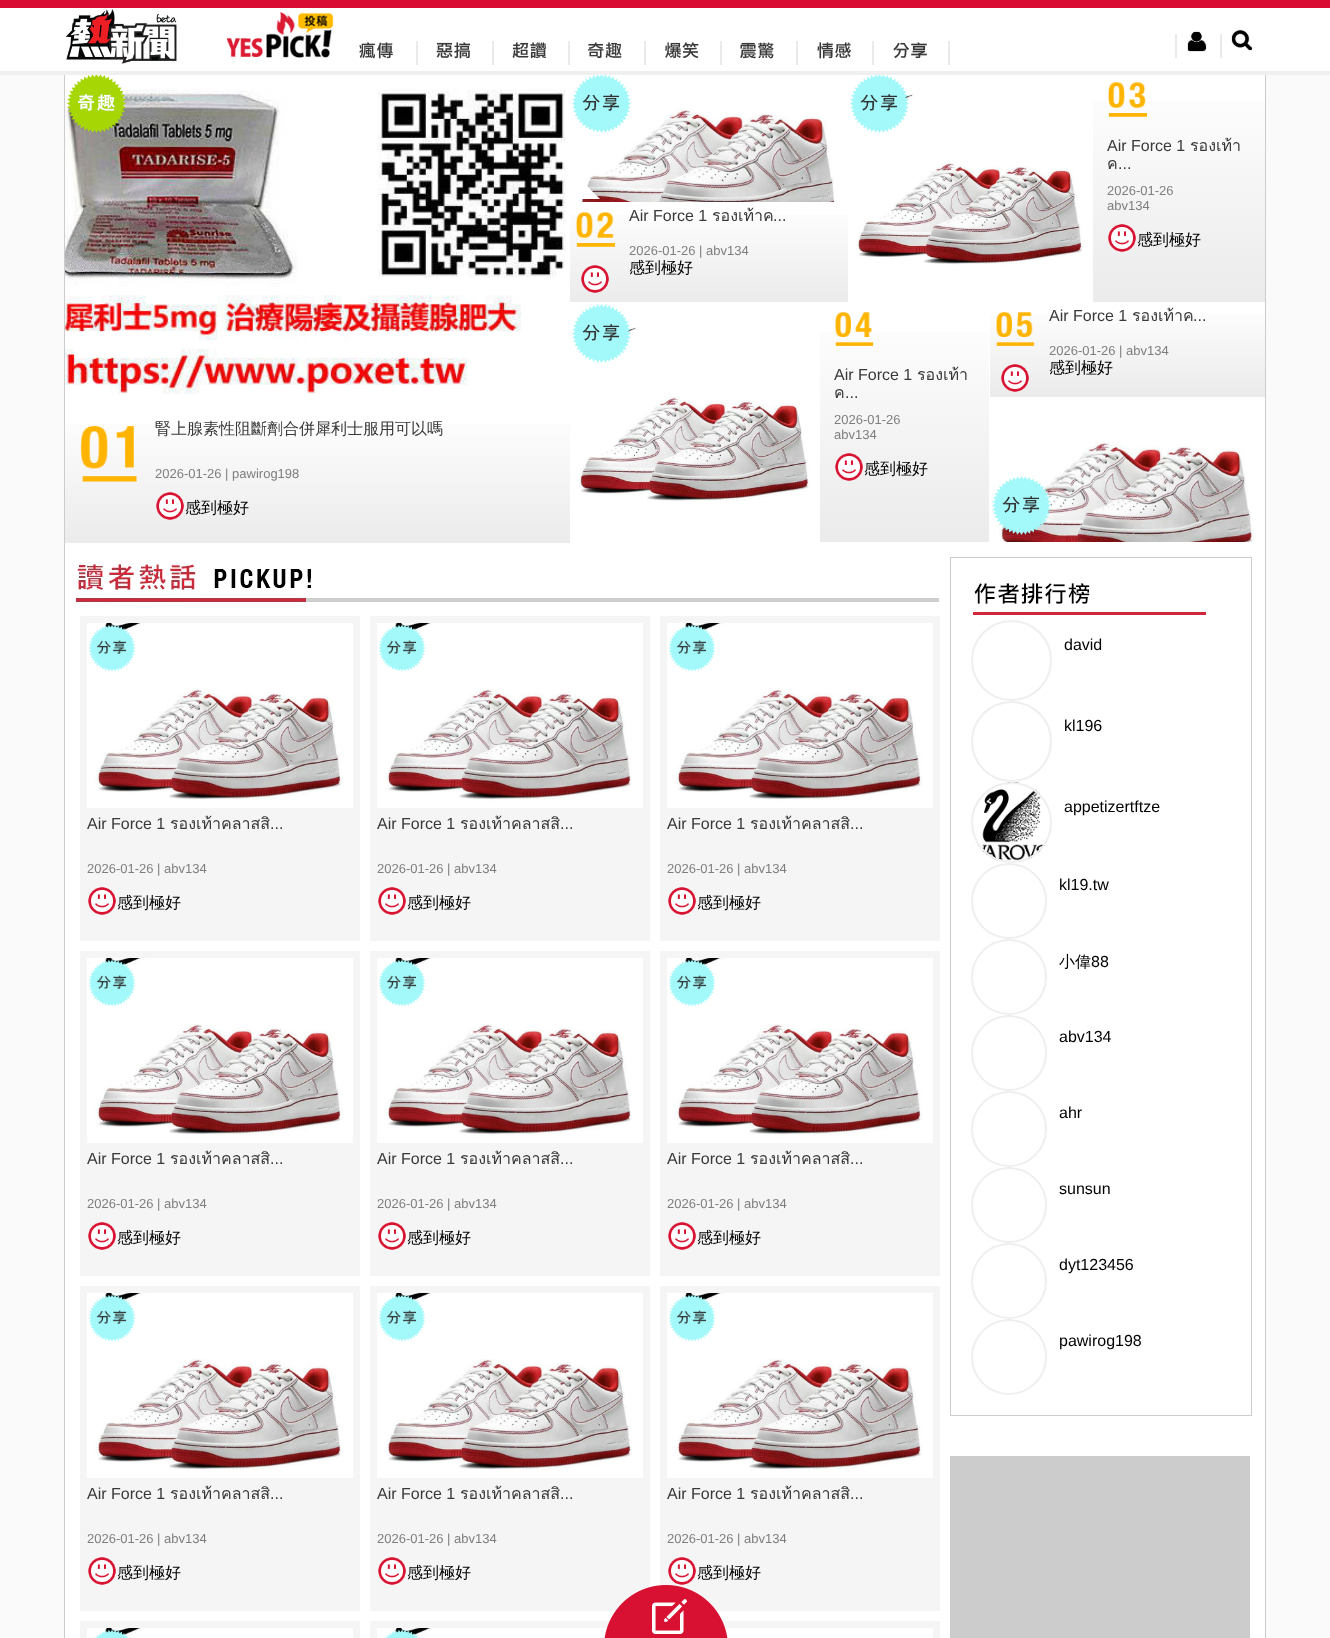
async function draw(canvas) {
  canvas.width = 1330;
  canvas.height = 1638;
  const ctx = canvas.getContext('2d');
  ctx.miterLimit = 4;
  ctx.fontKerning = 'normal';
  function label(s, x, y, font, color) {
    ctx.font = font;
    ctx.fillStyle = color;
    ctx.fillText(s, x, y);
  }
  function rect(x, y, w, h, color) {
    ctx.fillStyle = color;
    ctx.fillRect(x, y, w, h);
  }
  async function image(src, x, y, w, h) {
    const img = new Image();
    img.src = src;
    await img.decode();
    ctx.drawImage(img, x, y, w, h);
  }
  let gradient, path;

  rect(0, 0, 1330, 1638, '#fafafa');
  rect(0, 8, 1330, 63, '#fff');
  ctx.strokeStyle = '#ccc';
  ctx.strokeRect(64.5, 71.5, 1201, 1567);
  rect(0, 71, 1330, 4, '#efefef');
  rect(0, 0, 1330, 8, '#d90c34');
  await image('assets/img1.png', 65, 9, 112, 55);
  await image('assets/img2.png', 227, 11, 107, 47);
  await image('assets/img3.png', 359, 42, 34, 17);
  rect(416, 41, 2, 24, '#eaeaea');
  await image('assets/img4.png', 436, 42, 35, 17);
  rect(492, 41, 2, 24, '#eaeaea');
  await image('assets/img5.png', 512, 42, 34, 17);
  rect(568, 41, 2, 24, '#eaeaea');
  await image('assets/img6.png', 588, 42, 34, 17);
  rect(644, 41, 2, 24, '#eaeaea');
  await image('assets/img7.png', 665, 42, 34, 17);
  rect(720, 41, 2, 24, '#eaeaea');
  await image('assets/img8.png', 740, 42, 34, 17);
  rect(796, 41, 2, 24, '#eaeaea');
  await image('assets/img9.png', 817, 42, 34, 17);
  rect(872, 41, 2, 24, '#eaeaea');
  await image('assets/img10.png', 893, 42, 34, 17);
  rect(948, 41, 2, 24, '#eaeaea');
  rect(1175, 34, 2, 24, '#eaeaea');
  await image('assets/img11.png', 1187, 31, 20, 21);
  rect(1220, 34, 2, 24, '#eaeaea');
  await image('assets/img12.png', 1231, 29, 22, 22);
  rect(65, 75, 1200, 1563, '#fff');
  await image('assets/img14.png', 65, 86, 501, 308);
  await image('assets/img13.png', 67, 75, 59, 58);
  gradient = ctx.createLinearGradient(318, 407, 318, 543);
  gradient.addColorStop(0, '#fff');
  gradient.addColorStop(1, '#ebebeb');
  ctx.fillStyle = gradient;
  ctx.fillRect(65, 424, 505, 119);
  ctx.fillStyle = '#fff';
  path = new Path2D('M115 403H65L90 378Z');
  ctx.fill(path);
  await image('assets/img15.png', 80, 426, 57, 56);
  label('腎上腺素性阻斷劑合併犀利士服用可以嗎', 155, 434, '500 16px WenQuanYi Zen Hei', '#393939');
  label('2026-01-26 | pawirog198', 155, 478, '13px Liberation Sans', '#7e7e7e');
  await image('assets/img16.png', 156, 492, 28, 28);
  label('感到極好', 185, 513, '500 16px WenQuanYi Zen Hei', '#000');
  await image('assets/img18.png', 579, 109, 258, 93);
  await image('assets/img17.png', 572, 75, 59, 58);
  gradient = ctx.createLinearGradient(709, 202, 709, 302);
  gradient.addColorStop(0, '#fff');
  gradient.addColorStop(1, '#ebebeb');
  ctx.fillStyle = gradient;
  ctx.fillRect(570, 215, 278, 87);
  ctx.fillStyle = '#fff';
  path = new Path2D('M600 199H570L585 184Z');
  ctx.fill(path);
  await image('assets/img19.png', 576, 212, 39, 35);
  await image('assets/img20.png', 581, 265, 28, 28);
  label('Air Force 1', 629, 221, '16px Liberation Sans', '#393939');
  label('รองเท้าค', 712, 221, '16px Loma', '#393939');
  label('...', 773, 221, '16px Liberation Sans', '#393939');
  label('2026-01-26 | abv134', 629, 255, '13px Liberation Sans', '#7e7e7e');
  label('感到極好', 629, 273, '500 16px WenQuanYi Zen Hei', '#000');
  await image('assets/img22.png', 856, 94, 227, 171);
  await image('assets/img21.png', 850, 75, 59, 58);
  gradient = ctx.createLinearGradient(1179, 72, 1179, 302);
  gradient.addColorStop(0, '#fff');
  gradient.addColorStop(1, '#ebebeb');
  ctx.fillStyle = gradient;
  ctx.fillRect(1093, 101, 172, 201);
  await image('assets/img23.png', 1108, 82, 39, 35);
  label('Air Force 1', 1107, 151, '16px Liberation Sans', '#393939');
  label('รองเท้า', 1190, 151, '16px Loma', '#393939');
  label('ค', 1107, 169, '16px Loma', '#393939');
  label('...', 1118, 169, '16px Liberation Sans', '#393939');
  label('2026-01-26', 1107, 195, '13px Liberation Sans', '#7e7e7e');
  label('abv134', 1107, 210, '13px Liberation Sans', '#7e7e7e');
  await image('assets/img24.png', 1108, 224, 28, 28);
  label('感到極好', 1137, 245, '500 16px WenQuanYi Zen Hei', '#000');
  gradient = ctx.createLinearGradient(1128, 302, 1128, 397);
  gradient.addColorStop(0, '#fff');
  gradient.addColorStop(1, '#ebebeb');
  ctx.fillStyle = gradient;
  ctx.fillRect(990, 314, 275, 83);
  await image('assets/img25.png', 996, 312, 39, 34);
  await image('assets/img26.png', 1001, 364, 28, 28);
  label('Air Force 1', 1049, 321, '16px Liberation Sans', '#393939');
  label('รองเท้าค', 1132, 321, '16px Loma', '#393939');
  label('...', 1193, 321, '16px Liberation Sans', '#393939');
  label('2026-01-26 | abv134', 1049, 355, '13px Liberation Sans', '#7e7e7e');
  label('感到極好', 1049, 373, '500 16px WenQuanYi Zen Hei', '#000');
  await image('assets/img27.png', 999, 442, 255, 100);
  await image('assets/img28.png', 992, 476, 59, 59);
  await image('assets/img30.png', 578, 327, 232, 175);
  await image('assets/img29.png', 572, 304, 59, 59);
  gradient = ctx.createLinearGradient(905, 302, 905, 542);
  gradient.addColorStop(0, '#fff');
  gradient.addColorStop(1, '#ebebeb');
  ctx.fillStyle = gradient;
  ctx.fillRect(820, 332, 169, 210);
  await image('assets/img31.png', 835, 312, 39, 34);
  label('Air Force 1', 834, 380, '16px Liberation Sans', '#393939');
  label('รองเท้า', 917, 380, '16px Loma', '#393939');
  label('ค', 834, 398, '16px Loma', '#393939');
  label('...', 845, 398, '16px Liberation Sans', '#393939');
  label('2026-01-26', 834, 424, '13px Liberation Sans', '#7e7e7e');
  label('abv134', 834, 439, '13px Liberation Sans', '#7e7e7e');
  await image('assets/img32.png', 835, 453, 28, 28);
  label('感到極好', 864, 474, '500 16px WenQuanYi Zen Hei', '#000');
  await image('assets/img33.png', 76, 562, 863, 40);
  rect(80, 616, 280, 325, '#f5f5f5');
  await image('assets/img34.png', 87, 623, 266, 185);
  await image('assets/img35.png', 88, 624, 48, 48);
  label('Air Force 1', 87, 829, '16px Liberation Sans', '#393939');
  label('รองเท้าคลาสสิ', 170, 829, '16px Loma', '#393939');
  label('...', 270, 829, '16px Liberation Sans', '#393939');
  label('2026-01-26 | abv134', 87, 873, '13px Liberation Sans', '#7e7e7e');
  await image('assets/img36.png', 88, 887, 28, 28);
  label('感到極好', 117, 908, '500 16px WenQuanYi Zen Hei', '#000');
  rect(370, 616, 280, 325, '#f5f5f5');
  await image('assets/img37.png', 377, 623, 266, 185);
  await image('assets/img38.png', 378, 624, 48, 48);
  label('Air Force 1', 377, 829, '16px Liberation Sans', '#393939');
  label('รองเท้าคลาสสิ', 460, 829, '16px Loma', '#393939');
  label('...', 560, 829, '16px Liberation Sans', '#393939');
  label('2026-01-26 | abv134', 377, 873, '13px Liberation Sans', '#7e7e7e');
  await image('assets/img39.png', 378, 887, 28, 28);
  label('感到極好', 407, 908, '500 16px WenQuanYi Zen Hei', '#000');
  rect(660, 616, 280, 325, '#f5f5f5');
  await image('assets/img34.png', 667, 623, 266, 185);
  await image('assets/img38.png', 668, 624, 48, 48);
  label('Air Force 1', 667, 829, '16px Liberation Sans', '#393939');
  label('รองเท้าคลาสสิ', 750, 829, '16px Loma', '#393939');
  label('...', 850, 829, '16px Liberation Sans', '#393939');
  label('2026-01-26 | abv134', 667, 873, '13px Liberation Sans', '#7e7e7e');
  await image('assets/img39.png', 668, 887, 28, 28);
  label('感到極好', 697, 908, '500 16px WenQuanYi Zen Hei', '#000');
  rect(80, 951, 280, 325, '#f5f5f5');
  await image('assets/img34.png', 87, 958, 266, 185);
  await image('assets/img35.png', 88, 959, 48, 48);
  label('Air Force 1', 87, 1164, '16px Liberation Sans', '#393939');
  label('รองเท้าคลาสสิ', 170, 1164, '16px Loma', '#393939');
  label('...', 270, 1164, '16px Liberation Sans', '#393939');
  label('2026-01-26 | abv134', 87, 1208, '13px Liberation Sans', '#7e7e7e');
  await image('assets/img36.png', 88, 1222, 28, 28);
  label('感到極好', 117, 1243, '500 16px WenQuanYi Zen Hei', '#000');
  rect(370, 951, 280, 325, '#f5f5f5');
  await image('assets/img37.png', 377, 958, 266, 185);
  await image('assets/img38.png', 378, 959, 48, 48);
  label('Air Force 1', 377, 1164, '16px Liberation Sans', '#393939');
  label('รองเท้าคลาสสิ', 460, 1164, '16px Loma', '#393939');
  label('...', 560, 1164, '16px Liberation Sans', '#393939');
  label('2026-01-26 | abv134', 377, 1208, '13px Liberation Sans', '#7e7e7e');
  await image('assets/img39.png', 378, 1222, 28, 28);
  label('感到極好', 407, 1243, '500 16px WenQuanYi Zen Hei', '#000');
  rect(660, 951, 280, 325, '#f5f5f5');
  await image('assets/img34.png', 667, 958, 266, 185);
  await image('assets/img38.png', 668, 959, 48, 48);
  label('Air Force 1', 667, 1164, '16px Liberation Sans', '#393939');
  label('รองเท้าคลาสสิ', 750, 1164, '16px Loma', '#393939');
  label('...', 850, 1164, '16px Liberation Sans', '#393939');
  label('2026-01-26 | abv134', 667, 1208, '13px Liberation Sans', '#7e7e7e');
  await image('assets/img39.png', 668, 1222, 28, 28);
  label('感到極好', 697, 1243, '500 16px WenQuanYi Zen Hei', '#000');
  rect(80, 1286, 280, 325, '#f5f5f5');
  await image('assets/img40.png', 87, 1293, 266, 185);
  await image('assets/img41.png', 88, 1294, 48, 48);
  label('Air Force 1', 87, 1499, '16px Liberation Sans', '#393939');
  label('รองเท้าคลาสสิ', 170, 1499, '16px Loma', '#393939');
  label('...', 270, 1499, '16px Liberation Sans', '#393939');
  label('2026-01-26 | abv134', 87, 1543, '13px Liberation Sans', '#7e7e7e');
  await image('assets/img36.png', 88, 1557, 28, 28);
  label('感到極好', 117, 1578, '500 16px WenQuanYi Zen Hei', '#000');
  rect(370, 1286, 280, 325, '#f5f5f5');
  await image('assets/img42.png', 377, 1293, 266, 185);
  await image('assets/img43.png', 378, 1294, 48, 48);
  label('Air Force 1', 377, 1499, '16px Liberation Sans', '#393939');
  label('รองเท้าคลาสสิ', 460, 1499, '16px Loma', '#393939');
  label('...', 560, 1499, '16px Liberation Sans', '#393939');
  label('2026-01-26 | abv134', 377, 1543, '13px Liberation Sans', '#7e7e7e');
  await image('assets/img39.png', 378, 1557, 28, 28);
  label('感到極好', 407, 1578, '500 16px WenQuanYi Zen Hei', '#000');
  rect(660, 1286, 280, 325, '#f5f5f5');
  await image('assets/img40.png', 667, 1293, 266, 185);
  await image('assets/img43.png', 668, 1294, 48, 48);
  label('Air Force 1', 667, 1499, '16px Liberation Sans', '#393939');
  label('รองเท้าคลาสสิ', 750, 1499, '16px Loma', '#393939');
  label('...', 850, 1499, '16px Liberation Sans', '#393939');
  label('2026-01-26 | abv134', 667, 1543, '13px Liberation Sans', '#7e7e7e');
  await image('assets/img39.png', 668, 1557, 28, 28);
  label('感到極好', 697, 1578, '500 16px WenQuanYi Zen Hei', '#000');
  rect(80, 1621, 280, 17, '#f5f5f5');
  await image('assets/img44.png', 87, 1628, 266, 10);
  await image('assets/img45.png', 94, 1629, 36, 9);
  rect(370, 1621, 240, 17, '#f5f5f5');
  await image('assets/img46.png', 377, 1628, 230, 10);
  await image('assets/img47.png', 384, 1629, 36, 9);
  rect(722, 1621, 218, 17, '#f5f5f5');
  await image('assets/img48.png', 725, 1628, 208, 10);
  ctx.strokeRect(950.5, 557.5, 301, 858);
  await image('assets/img49.png', 973, 583, 233, 32);
  ctx.beginPath();
  ctx.arc(1011.5, 660.5, 39.5, 0, 2 * Math.PI);
  ctx.strokeStyle = '#efefef';
  ctx.lineWidth = 2;
  ctx.stroke();
  label('david', 1064, 650, '16px Liberation Sans', '#000');
  ctx.beginPath();
  ctx.arc(1011.5, 741.5, 39.5, 0, 2 * Math.PI);
  ctx.stroke();
  label('kl196', 1064, 731, '16px Liberation Sans', '#000');
  await image('assets/img50.png', 977, 782, 69, 79);
  ctx.beginPath();
  ctx.arc(1011.5, 822.5, 39.5, 0, 2 * Math.PI);
  ctx.stroke();
  label('appetizertftze', 1064, 812, '16px Liberation Sans', '#000');
  ctx.beginPath();
  ctx.arc(1009, 901, 37, 0, 2 * Math.PI);
  ctx.stroke();
  label('kl19.tw', 1059, 890, '16px Liberation Sans', '#000');
  ctx.beginPath();
  ctx.arc(1009, 977, 37, 0, 2 * Math.PI);
  ctx.stroke();
  label('小偉', 1059, 967, '500 16px WenQuanYi Zen Hei', '#000');
  label('88', 1091, 967, '16px Liberation Sans', '#000');
  ctx.beginPath();
  ctx.arc(1009, 1053, 37, 0, 2 * Math.PI);
  ctx.stroke();
  label('abv134', 1059, 1042, '16px Liberation Sans', '#000');
  ctx.beginPath();
  ctx.arc(1009, 1129, 37, 0, 2 * Math.PI);
  ctx.stroke();
  label('ahr', 1059, 1118, '16px Liberation Sans', '#000');
  ctx.beginPath();
  ctx.arc(1009, 1205, 37, 0, 2 * Math.PI);
  ctx.stroke();
  label('sunsun', 1059, 1194, '16px Liberation Sans', '#000');
  ctx.beginPath();
  ctx.arc(1009, 1281, 37, 0, 2 * Math.PI);
  ctx.stroke();
  label('dyt123456', 1059, 1270, '16px Liberation Sans', '#000');
  ctx.beginPath();
  ctx.arc(1009, 1357, 37, 0, 2 * Math.PI);
  ctx.stroke();
  label('pawirog198', 1059, 1346, '16px Liberation Sans', '#000');
  rect(950, 1456, 300, 182, '#ccc');
  await image('assets/img51.png', 604, 1585, 124, 53);
}

draw(document.querySelector('canvas'));
